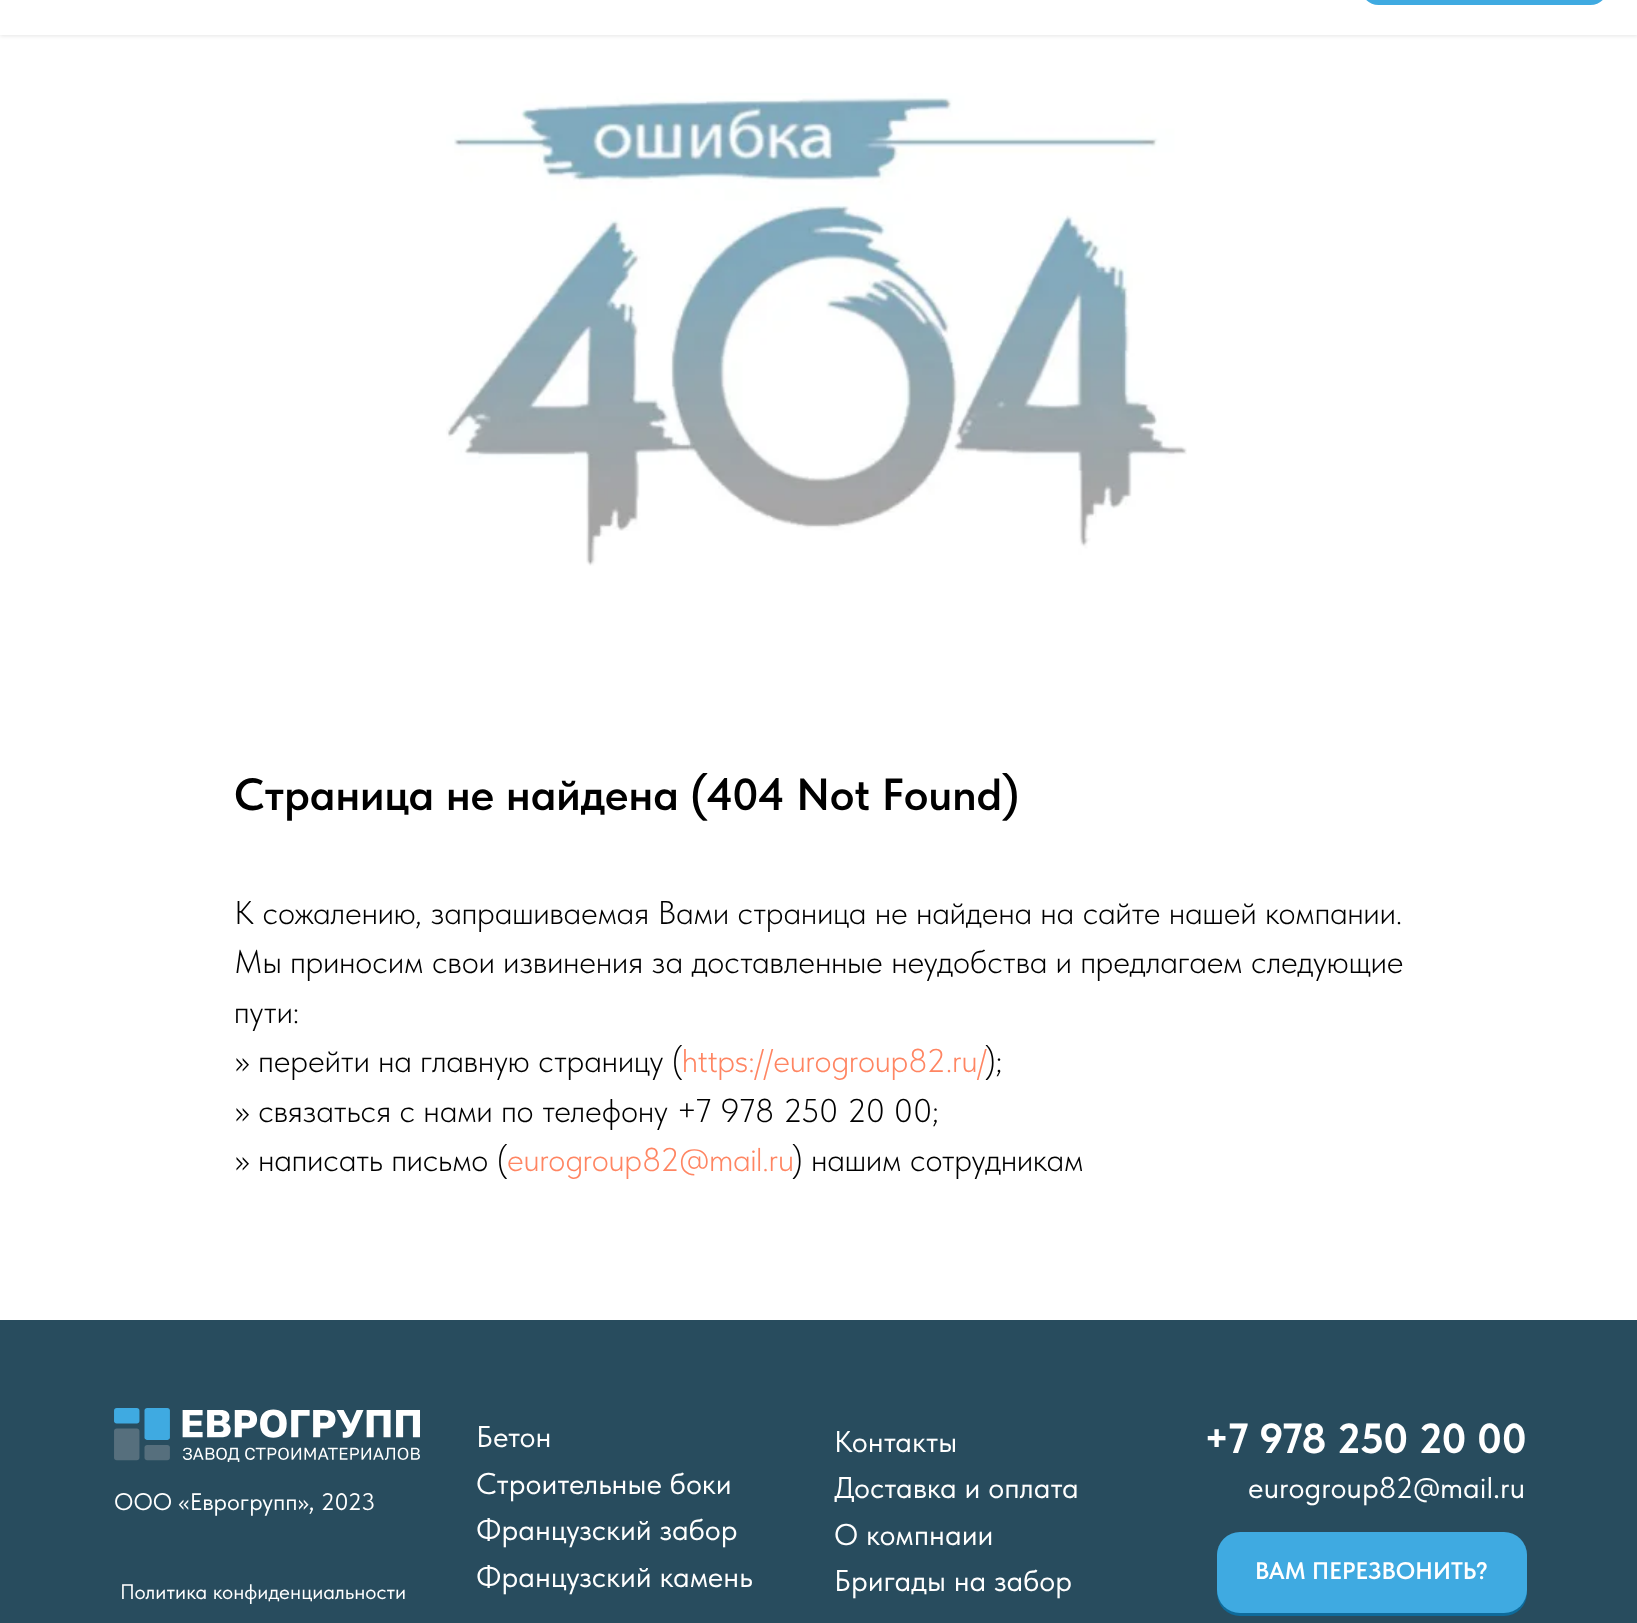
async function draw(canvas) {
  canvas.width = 1637;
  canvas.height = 1623;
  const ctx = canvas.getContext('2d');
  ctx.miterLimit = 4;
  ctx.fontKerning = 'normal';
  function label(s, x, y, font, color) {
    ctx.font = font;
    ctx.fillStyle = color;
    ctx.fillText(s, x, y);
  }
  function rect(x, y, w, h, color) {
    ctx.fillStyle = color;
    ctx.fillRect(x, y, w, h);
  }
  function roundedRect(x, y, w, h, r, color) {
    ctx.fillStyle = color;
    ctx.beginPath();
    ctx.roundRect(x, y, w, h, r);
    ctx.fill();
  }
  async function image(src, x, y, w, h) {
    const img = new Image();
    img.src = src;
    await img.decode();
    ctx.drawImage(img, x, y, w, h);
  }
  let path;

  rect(0, 0, 1637, 1623, '#fff');
  ctx.save();
  path = new Path2D('M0 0H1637V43H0ZM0-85H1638V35H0Z');
  ctx.clip(path, 'evenodd');
  ctx.fillStyle = '#0000001a';
  ctx.filter = 'blur(2px)';
  ctx.beginPath();
  ctx.rect(0, -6, 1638, 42);
  ctx.fill();
  ctx.filter = 'none';
  ctx.restore();
  rect(0, 34, 1637, 1, '#ffffff99');
  roundedRect(1361, -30, 247, 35, 30, '#3faae1');
  await image('assets/img1.png', 446, 93, 741, 473);
  label('Страница не найдена (404 Not Found)', 234, 810, '600 45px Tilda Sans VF', '#000');
  label('К сожалению, запрашиваемая Вами страница не найдена на сайте нашей компании.', 234, 924, '300 33px Tilda Sans VF', '#000');
  label('Мы приносим свои извинения за доставленные неудобства и предлагаем следующие', 234, 973, '300 33px Tilda Sans VF', '#000');
  label('пути:', 234, 1023, '300 33px Tilda Sans VF', '#000');
  label('» перейти на главную страницу (', 234, 1072, '300 33px Tilda Sans VF', '#000');
  label('https://eurogroup82.ru/', 682, 1072, '300 33px Tilda Sans VF', '#ff8562');
  label(');', 986, 1072, '300 33px Tilda Sans VF', '#000');
  label('» связаться с нами по телефону +7 978 250 20 00;', 234, 1122, '300 33px Tilda Sans VF', '#000');
  label('» написать письмо (', 234, 1171, '300 33px Tilda Sans VF', '#000');
  label('eurogroup82@mail.ru', 507, 1171, '300 33px Tilda Sans VF', '#ff8562');
  label(') нашим сотрудникам', 793, 1171, '300 33px Tilda Sans VF', '#000');
  rect(0, 1320, 1637, 303, '#284c5e');
  await image('assets/img2.png', 114, 1408, 306, 54);
  label('Бетон', 476, 1447, '30px Tilda Sans VF', '#fff');
  label('Контакты', 834, 1452, '30px Tilda Sans VF', '#fff');
  label('+7 978 250 20 00', 1204, 1453, 'bold 42px Tilda Sans VF', '#fff');
  label('ООО «Еврогрупп», 2023', 114, 1510, '24px Tilda Sans VF', '#fff');
  label('Строительные боки', 476, 1494, '30px Tilda Sans VF', '#fff');
  label('Доставка и оплата', 834, 1498, '30px Tilda Sans VF', '#fff');
  label('eurogroup82@mail.ru', 1248, 1498, '30px Tilda Sans VF', '#fff');
  label('Французский забор', 476, 1540, '30px Tilda Sans VF', '#fff');
  label('О компнаии', 834, 1545, '30px Tilda Sans VF', '#fff');
  roundedRect(1217, 1535, 310, 81, 23, '#0e6b9b');
  label('Политика конфиденциальности', 120, 1599, '21px Tilda Sans VF', '#fff');
  label('Французский камень', 476, 1587, '30px Tilda Sans VF', '#fff');
  label('Бригады на забор', 834, 1591, '30px Tilda Sans VF', '#fff');
  roundedRect(1217, 1532, 310, 81, 23, '#3faae1');
  label('ВАМ ПЕРЕЗВОНИТЬ?', 1255, 1579, '600 24px Tilda Sans VF', '#fff');
}

draw(document.querySelector('canvas'));
